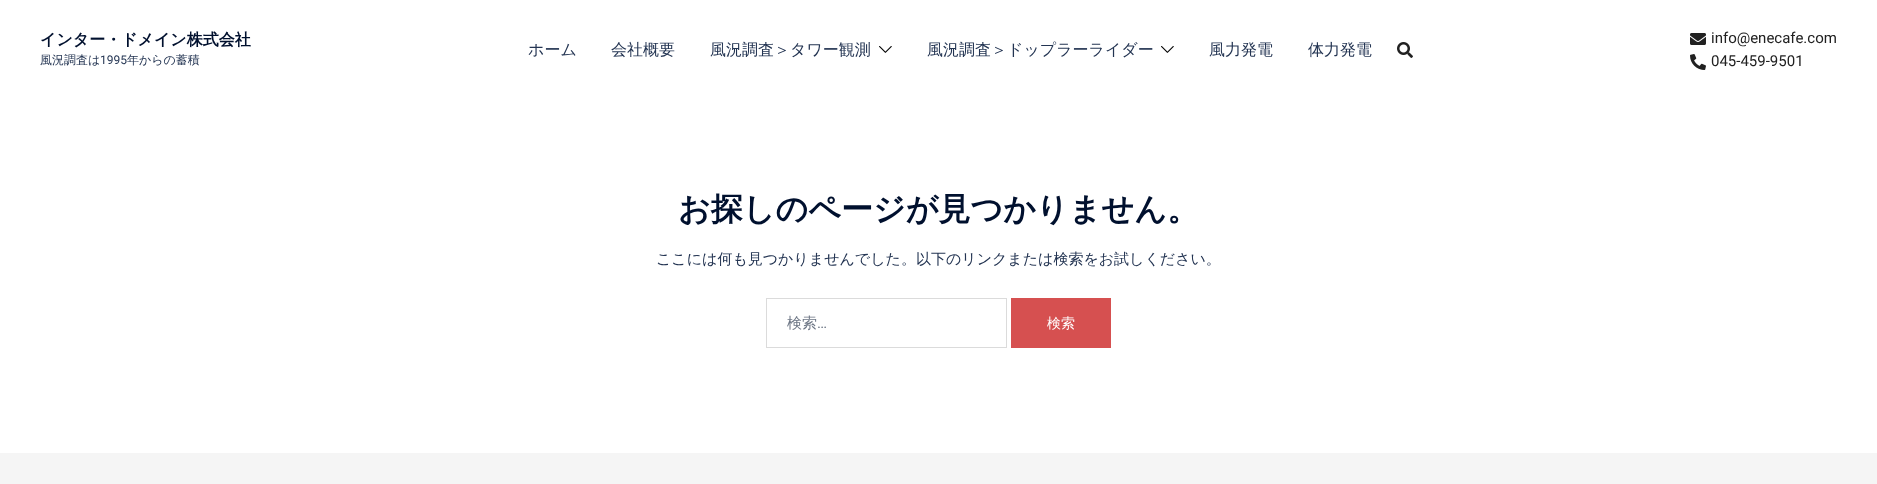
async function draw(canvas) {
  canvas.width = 1877;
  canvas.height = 484;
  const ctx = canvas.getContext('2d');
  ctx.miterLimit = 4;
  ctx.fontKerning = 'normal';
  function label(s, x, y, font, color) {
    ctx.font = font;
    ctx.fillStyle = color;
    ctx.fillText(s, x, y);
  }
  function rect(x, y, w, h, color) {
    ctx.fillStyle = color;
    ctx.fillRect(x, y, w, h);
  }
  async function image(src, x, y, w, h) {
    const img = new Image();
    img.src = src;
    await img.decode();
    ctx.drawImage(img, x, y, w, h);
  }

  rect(0, 0, 1877, 484, '#fff');
  label('インター・ドメイン株式会社', 40, 45, 'bold 16px WenQuanYi Zen Hei', '#00102e');
  label('風況調査は', 40, 64, '500 12px WenQuanYi Zen Hei', '#233452');
  label('1995', 100, 64, '12px Roboto', '#233452');
  label('年からの蓄積', 127, 64, '500 12px WenQuanYi Zen Hei', '#233452');
  label('ホーム', 528, 55, '500 16px WenQuanYi Zen Hei', '#233452');
  label('会社概要', 611, 55, '500 16px WenQuanYi Zen Hei', '#233452');
  label('風況調査＞タワー観測', 710, 55, '500 16px WenQuanYi Zen Hei', '#233452');
  await image('assets/img1.png', 879, 46, 13, 7);
  label('風況調査＞ドップラーライダー', 927, 55, '500 16px WenQuanYi Zen Hei', '#233452');
  await image('assets/img1.png', 1161, 46, 13, 7);
  label('風力発電', 1209, 55, '500 16px WenQuanYi Zen Hei', '#233452');
  label('体力発電', 1308, 55, '500 16px WenQuanYi Zen Hei', '#233452');
  await image('assets/img2.png', 1397, 42, 16, 16);
  await image('assets/img3.png', 1690, 33, 16, 12);
  label('info@enecafe.com', 1711, 43, '15px Roboto', '#212121');
  await image('assets/img4.png', 1690, 54, 16, 16);
  label('045-459-9501', 1711, 66, '15px Roboto', '#212121');
  label('お探しのページが見つかりません。', 678, 220, 'bold 32px WenQuanYi Zen Hei', '#00102e');
  label('ここには何も見つかりませんでした。以下のリンクまたは検索をお試しください。', 656, 264, '500 15px WenQuanYi Zen Hei', '#233452');
  ctx.strokeStyle = '#dbdbdb';
  ctx.strokeRect(766.5, 298.5, 240, 49);
  label('検索', 787, 328, '500 15px WenQuanYi Zen Hei', '#6d7685');
  label('…', 817, 328, '15px Roboto', '#6d7685');
  rect(1011, 298, 100, 50, '#d65050');
  label('検索', 1047, 328, '500 14px WenQuanYi Zen Hei', '#fff');
  rect(0, 453, 1877, 31, '#f5f5f5');
}

draw(document.querySelector('canvas'));
